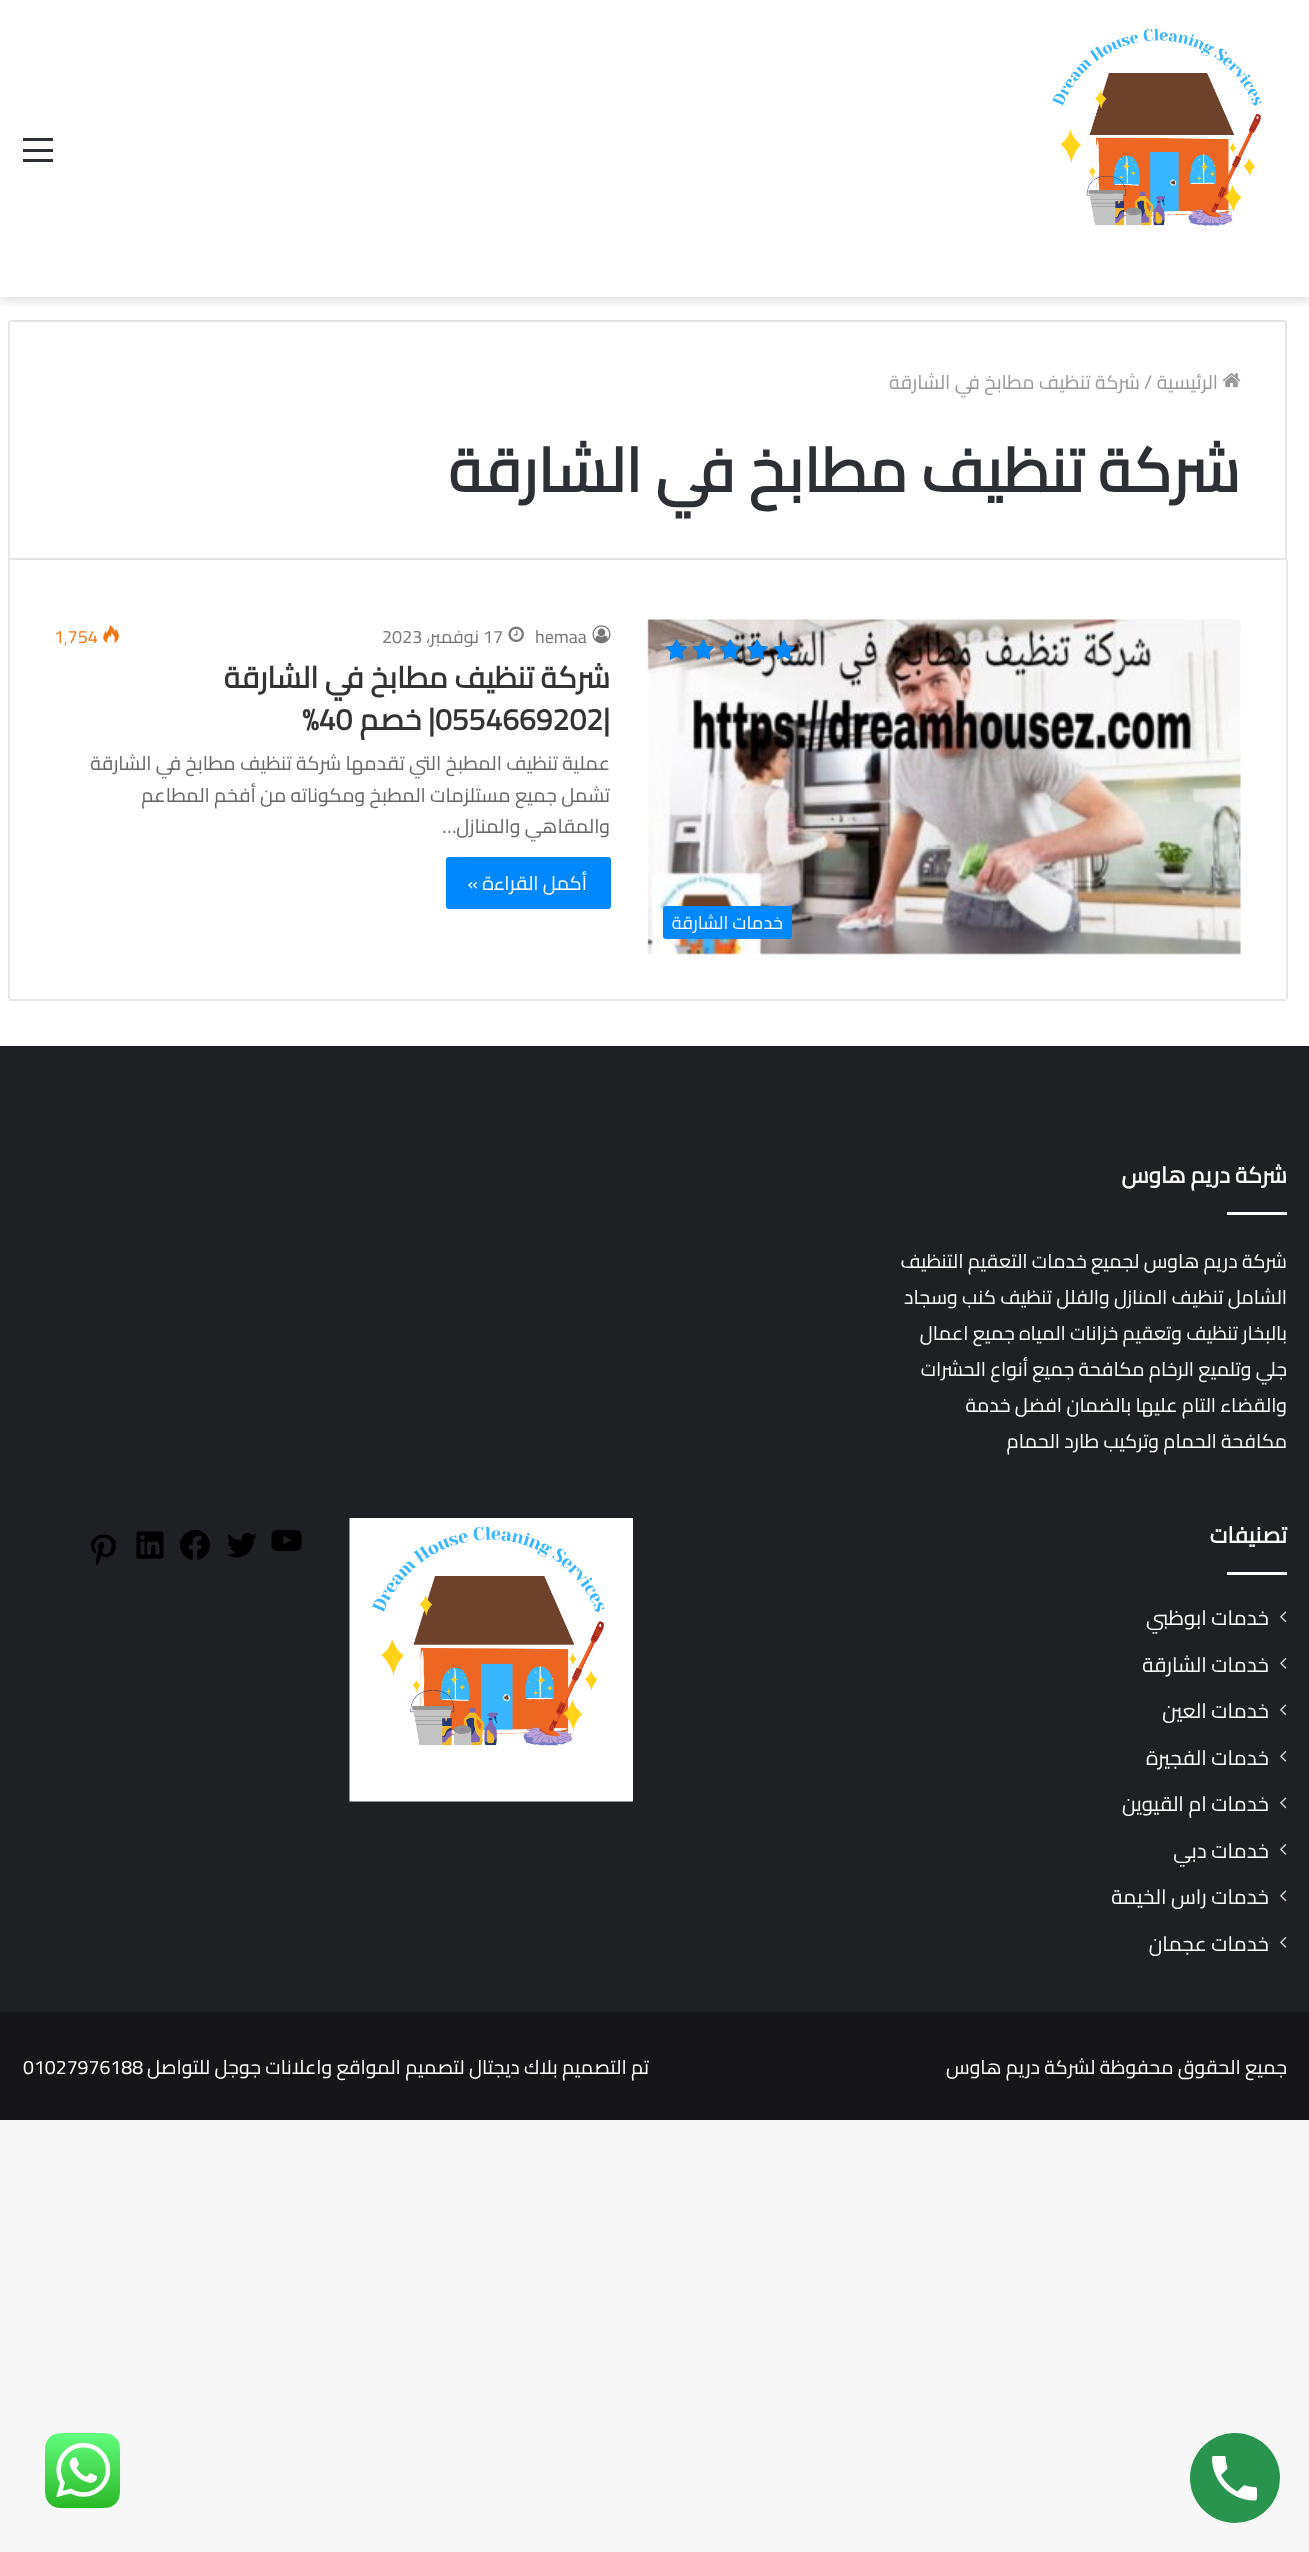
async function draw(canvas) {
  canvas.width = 1309;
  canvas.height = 2552;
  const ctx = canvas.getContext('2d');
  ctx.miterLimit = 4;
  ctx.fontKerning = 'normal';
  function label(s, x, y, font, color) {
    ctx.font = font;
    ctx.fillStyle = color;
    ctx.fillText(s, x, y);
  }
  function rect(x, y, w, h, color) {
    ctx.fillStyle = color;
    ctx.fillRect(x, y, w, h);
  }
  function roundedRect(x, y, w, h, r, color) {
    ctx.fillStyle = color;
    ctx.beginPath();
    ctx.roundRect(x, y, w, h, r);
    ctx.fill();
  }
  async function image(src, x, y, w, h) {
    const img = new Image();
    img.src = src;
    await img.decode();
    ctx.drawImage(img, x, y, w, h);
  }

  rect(0, 0, 1309, 2552, '#f7f7f7');
  rect(0, 0, 1309, 1046, '#fff');
  ctx.save();
  ctx.beginPath();
  ctx.rect(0, 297, 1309, 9);
  ctx.clip();
  ctx.fillStyle = '#0000001a';
  ctx.filter = 'blur(5px)';
  ctx.beginPath();
  ctx.rect(0, 5, 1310, 297);
  ctx.fill();
  ctx.filter = 'none';
  ctx.restore();
  await image('assets/img1.png', 1052, 28, 210, 198);
  rect(23, 149, 30, 3, '#2c2f34');
  rect(23, 138, 30, 3, '#2c2f34');
  rect(23, 159, 30, 3, '#2c2f34');
  ctx.beginPath();
  ctx.roundRect(9, 321, 1277, 238, [2, 2, 0, 0]);
  ctx.strokeStyle = '#e6e6e6';
  ctx.lineWidth = 2;
  ctx.stroke();
  await image('assets/img2.png', 1222, 373, 19, 15);
  ctx.direction = 'rtl';
  label('الرئيسية', 1218, 389, '19.5px Cairo', '#999');
  ctx.direction = 'ltr';
  label('/', 1144, 389, '19.5px Cairo', '#999');
  ctx.direction = 'rtl';
  label('شركة تنظيف مطابخ في الشارقة', 1140, 389, '19.5px Cairo', '#999');
  label('شركة تنظيف مطابخ في الشارقة', 1240, 492, 'bold 61.5px Cairo', '#2c2f34');
  rect(1286, 560, 2, 439, '#e6e6e6');
  rect(9, 999, 1277, 2, '#e6e6e6');
  rect(8, 560, 2, 439, '#e6e6e6');
  await image('assets/img3.png', 592, 625, 19, 19);
  ctx.direction = 'ltr';
  label('hemaa', 535, 643, '18px Cairo', '#767676');
  await image('assets/img4.png', 508, 626, 16, 16);
  label('17', 483, 643, '18px Cairo', '#767676');
  ctx.direction = 'rtl';
  label('نوفمبر،', 479, 643, '18px Cairo', '#767676');
  ctx.direction = 'ltr';
  label('2023', 382, 643, '18px Cairo', '#767676');
  await image('assets/img5.png', 103, 625, 16, 18);
  label('1٬754', 54, 643, '18px Cairo', '#f47512');
  ctx.direction = 'rtl';
  label('شركة تنظيف مطابخ في الشارقة', 610, 688, 'bold 30px Cairo', '#333');
  ctx.direction = 'ltr';
  label('0554669202|', 435, 730, 'bold 30px Cairo', '#333');
  ctx.direction = 'rtl';
  label('| خصم', 435, 730, 'bold 30px Cairo', '#333');
  ctx.direction = 'ltr';
  label('%40', 302, 730, 'bold 30px Cairo', '#333');
  ctx.direction = 'rtl';
  label('عملية تنظيف المطبخ التي تقدمها شركة تنظيف مطابخ في الشارقة', 610, 770, '19.5px Cairo', '#666');
  label('تشمل جميع مستلزمات المطبخ ومكوناته من أفخم المطاعم', 610, 802, '19.5px Cairo', '#666');
  label('والمقاهي والمنازل…', 610, 833, '19.5px Cairo', '#666');
  roundedRect(446, 857, 165, 52, 3, '#08f');
  label('أكمل القراءة »', 587, 890, '19.5px Cairo', '#fff');
  await image('assets/img6.png', 647, 619, 594, 337);
  await image('assets/img7.png', 666, 639, 129, 21);
  await image('assets/img8.png', 666, 639, 129, 21);
  roundedRect(663, 906, 129, 33, 3, '#08f');
  label('خدمات الشارقة', 783, 929, '18px Cairo', '#fff');
  rect(0, 1046, 1309, 966, '#1f2024');
  label('شركة دريم هاوس', 1287, 1183, 'bold 22.5px Cairo', '#fff');
  rect(1227, 1212, 60, 3, '#fff');
  label('شركة دريم هاوس لجميع خدمات التعقيم التنظيف', 1287, 1268, '19.5px Cairo', '#fff');
  label('الشامل تنظيف المنازل والفلل تنظيف كنب وسجاد', 1287, 1304, '19.5px Cairo', '#fff');
  label('بالبخار تنظيف وتعقيم خزانات المياه جميع اعمال', 1287, 1340, '19.5px Cairo', '#fff');
  label('جلي وتلميع الرخام مكافحة جميع أنواع الحشرات', 1287, 1376, '19.5px Cairo', '#fff');
  label('والقضاء التام عليها بالضمان افضل خدمة', 1287, 1412, '19.5px Cairo', '#fff');
  label('مكافحة الحمام وتركيب طارد الحمام', 1287, 1448, '19.5px Cairo', '#fff');
  label('تصنيفات', 1287, 1543, 'bold 22.5px Cairo', '#fff');
  rect(1227, 1572, 60, 3, '#fff');
  await image('assets/img9.png', 1280, 1611, 7, 12);
  label('خدمات ابوظبي', 1269, 1625, '20.5px Cairo', '#fff');
  await image('assets/img10.png', 1280, 1657, 7, 12);
  label('خدمات الشارقة', 1269, 1672, '20.5px Cairo', '#fff');
  await image('assets/img9.png', 1280, 1704, 7, 12);
  label('خدمات العين', 1269, 1718, '20.5px Cairo', '#fff');
  await image('assets/img10.png', 1280, 1750, 7, 12);
  label('خدمات الفجيرة', 1269, 1765, '20.5px Cairo', '#fff');
  await image('assets/img9.png', 1280, 1797, 7, 12);
  label('خدمات ام القيوين', 1269, 1811, '20.5px Cairo', '#fff');
  await image('assets/img10.png', 1280, 1843, 7, 12);
  label('خدمات دبي', 1269, 1858, '20.5px Cairo', '#fff');
  await image('assets/img9.png', 1280, 1890, 7, 12);
  label('خدمات راس الخيمة', 1269, 1904, '20.5px Cairo', '#fff');
  await image('assets/img10.png', 1280, 1936, 7, 12);
  label('خدمات عجمان', 1269, 1951, '20.5px Cairo', '#fff');
  await image('assets/img11.png', 349, 1518, 284, 284);
  await image('assets/img12.png', 271, 1530, 31, 21);
  await image('assets/img13.png', 227, 1533, 30, 25);
  await image('assets/img14.png', 180, 1530, 30, 30);
  await image('assets/img15.png', 136, 1531, 28, 28);
  await image('assets/img16.png', 91, 1534, 25, 32);
  rect(0, 2012, 1309, 108, '#161619');
  label('جميع الحقوق محفوظة لشركة دريم هاوس', 1287, 2074, '19.5px Cairo', '#fff');
  label('تم التصميم بلاك ديجتال لتصميم المواقع واعلانات جوجل للتواصل', 649, 2074, '19.5px Cairo', '#fff');
  ctx.direction = 'ltr';
  label('01027976188', 23, 2074, '19.5px Cairo', '#fff');
  ctx.fillStyle = '#28944e';
  ctx.beginPath();
  ctx.arc(1235, 2478, 45, 0, 2 * Math.PI);
  ctx.fill();
  await image('assets/img17.png', 1212, 2456, 45, 45);
  await image('assets/img18.png', 45, 2433, 75, 75);
}

draw(document.querySelector('canvas'));
